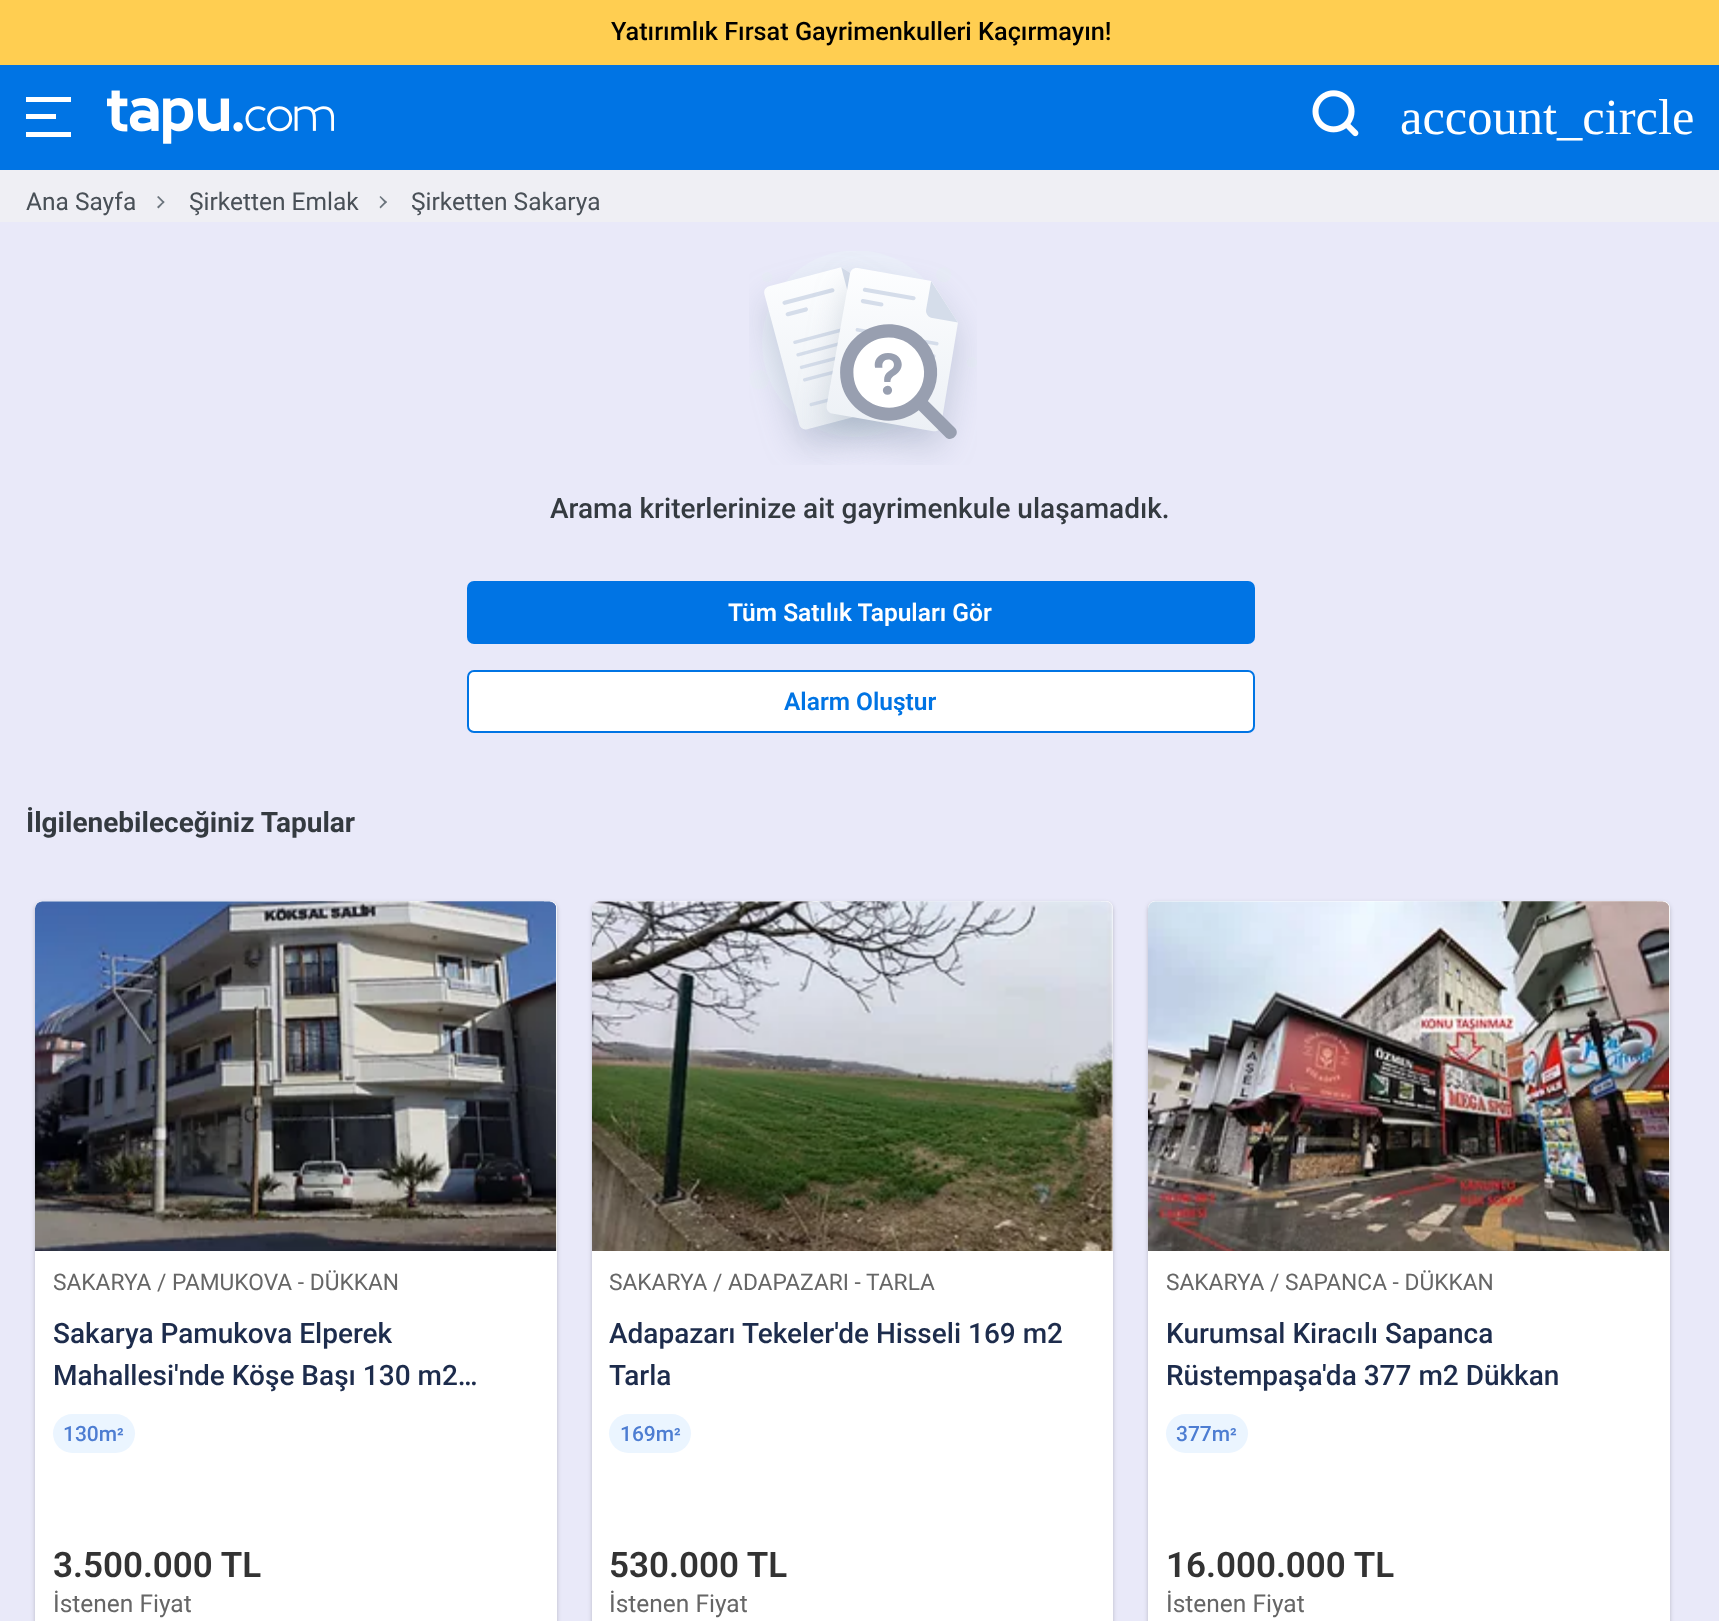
async function draw(canvas) {
  canvas.width = 1719;
  canvas.height = 1621;
  const ctx = canvas.getContext('2d');
  ctx.miterLimit = 4;
  ctx.fontKerning = 'normal';
  function label(s, x, y, font, color) {
    ctx.font = font;
    ctx.fillStyle = color;
    ctx.fillText(s, x, y);
  }
  function rect(x, y, w, h, color) {
    ctx.fillStyle = color;
    ctx.fillRect(x, y, w, h);
  }
  function roundedRect(x, y, w, h, r, color) {
    ctx.fillStyle = color;
    ctx.beginPath();
    ctx.roundRect(x, y, w, h, r);
    ctx.fill();
  }
  async function image(src, x, y, w, h) {
    const img = new Image();
    img.src = src;
    await img.decode();
    ctx.drawImage(img, x, y, w, h);
  }
  let path;

  rect(0, 0, 1719, 1621, '#ffce51');
  label('Yatırımlık Fırsat Gayrimenkulleri Kaçırmayın!', 611, 40, '500 25.25px Roboto', '#000');
  rect(0, 170, 1719, 52, '#efeff4');
  rect(0, 65, 1719, 105, '#0074e4');
  ctx.fillStyle = '#fff';
  path = new Path2D('M71 137H26V132H71ZM56 119H26V114H56ZM71 102H26V97H71Z');
  ctx.fill(path);
  await image('assets/img1.png', 107, 90, 227, 54);
  await image('assets/img2.png', 1312, 90, 47, 47);
  label('account_circle', 1400, 134, '50.5px Liberation Serif', '#fff');
  label('Ana Sayfa', 26, 210, '24.5px Roboto', '#495057');
  ctx.fillStyle = '#6c757d';
  path = new Path2D('M157 197L158.5 196L164.5 202L163.5 203.5Z');
  ctx.fill(path);
  path = new Path2D('M157 207L163.5 201L164.5 202L158.5 208.5Z');
  ctx.fill(path);
  label('Şirketten Emlak', 189, 210, '24.5px Roboto', '#495057');
  ctx.fillStyle = '#6c757d';
  path = new Path2D('M379.5 197L380.5 196L387 202L385.5 203.5Z');
  ctx.fill(path);
  path = new Path2D('M379.5 207L385.5 201L387 202L380.5 208.5Z');
  ctx.fill(path);
  label('Şirketten Sakarya', 411, 210, '24.5px Roboto', '#495057');
  rect(0, 222, 1719, 1399, '#e9e9f9');
  await image('assets/img3.png', 749, 251, 228, 214);
  label('Arama kriterlerinize ait gayrimenkule ulaşamadık.', 550, 518, '500 28px Roboto', '#343a40');
  roundedRect(467, 581, 788, 63, 7, '#0074e4');
  label('Tüm Satılık Tapuları Gör', 728, 621, '600 24.5px Roboto', '#fff');
  ctx.beginPath();
  ctx.roundRect(468, 671, 786, 61, 6);
  ctx.fill();
  ctx.strokeStyle = '#0074e4';
  ctx.lineWidth = 2;
  ctx.stroke();
  label('Alarm Oluştur', 784, 710, '600 24.5px Roboto', '#0074e4');
  label('İlgilenebileceğiniz Tapular', 26, 832, 'bold 28px Roboto', '#343a40');
  ctx.fillStyle = '#00000033';
  ctx.filter = 'blur(2px)';
  ctx.beginPath();
  ctx.roundRect(35, 903, 522, 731, 7);
  ctx.fill();
  ctx.filter = 'none';
  roundedRect(35, 901, 522, 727, 7, '#fff');
  await image('assets/img4.png', 35, 901, 522, 350);
  label('SAKARYA / PAMUKOVA - DÜKKAN', 53, 1290, '22.75px Roboto', '#666');
  label('Sakarya Pamukova Elperek', 53, 1343, '500 28px Roboto', '#1d2c4c');
  label('Mahallesi\'nde Köşe Başı 130 m2…', 53, 1385, '500 28px Roboto', '#1d2c4c');
  roundedRect(53, 1414, 82, 39, 19.5, '#ebf5ff');
  label('130m', 63, 1441, '500 21px Roboto', '#4d7dd2');
  label('²', 117, 1441, '500 18px Roboto', '#4d7dd2');
  label('3.500.000 TL', 53, 1577, '600 35px Roboto', '#333');
  label('İstenen Fiyat', 53, 1612, '24.5px Roboto', '#666');
  ctx.fillStyle = '#00000033';
  ctx.filter = 'blur(2px)';
  ctx.beginPath();
  ctx.roundRect(592, 903, 521, 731, 7);
  ctx.fill();
  ctx.filter = 'none';
  roundedRect(592, 901, 521, 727, 7, '#fff');
  await image('assets/img5.png', 592, 901, 521, 350);
  label('SAKARYA / ADAPAZARI - TARLA', 609, 1290, '22.75px Roboto', '#666');
  label('Adapazarı Tekeler\'de Hisseli 169 m2', 609, 1343, '500 28px Roboto', '#1d2c4c');
  label('Tarla', 609, 1385, '500 28px Roboto', '#1d2c4c');
  roundedRect(609, 1414, 82, 39, 19.5, '#ebf5ff');
  label('169m', 620, 1441, '500 21px Roboto', '#4d7dd2');
  label('²', 674, 1441, '500 18px Roboto', '#4d7dd2');
  label('530.000 TL', 609, 1577, '600 35px Roboto', '#333');
  label('İstenen Fiyat', 609, 1612, '24.5px Roboto', '#666');
  ctx.fillStyle = '#00000033';
  ctx.filter = 'blur(2px)';
  ctx.beginPath();
  ctx.roundRect(1148, 903, 522, 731, 7);
  ctx.fill();
  ctx.filter = 'none';
  roundedRect(1148, 901, 522, 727, 7, '#fff');
  await image('assets/img6.png', 1148, 901, 522, 350);
  label('SAKARYA / SAPANCA - DÜKKAN', 1166, 1290, '22.75px Roboto', '#666');
  label('Kurumsal Kiracılı Sapanca', 1166, 1343, '500 28px Roboto', '#1d2c4c');
  label('Rüstempaşa\'da 377 m2 Dükkan', 1166, 1385, '500 28px Roboto', '#1d2c4c');
  roundedRect(1166, 1414, 82, 39, 19.5, '#ebf5ff');
  label('377m', 1176, 1441, '500 21px Roboto', '#4d7dd2');
  label('²', 1230, 1441, '500 18px Roboto', '#4d7dd2');
  label('16.000.000 TL', 1166, 1577, '600 35px Roboto', '#333');
  label('İstenen Fiyat', 1166, 1612, '24.5px Roboto', '#666');
}

draw(document.querySelector('canvas'));
